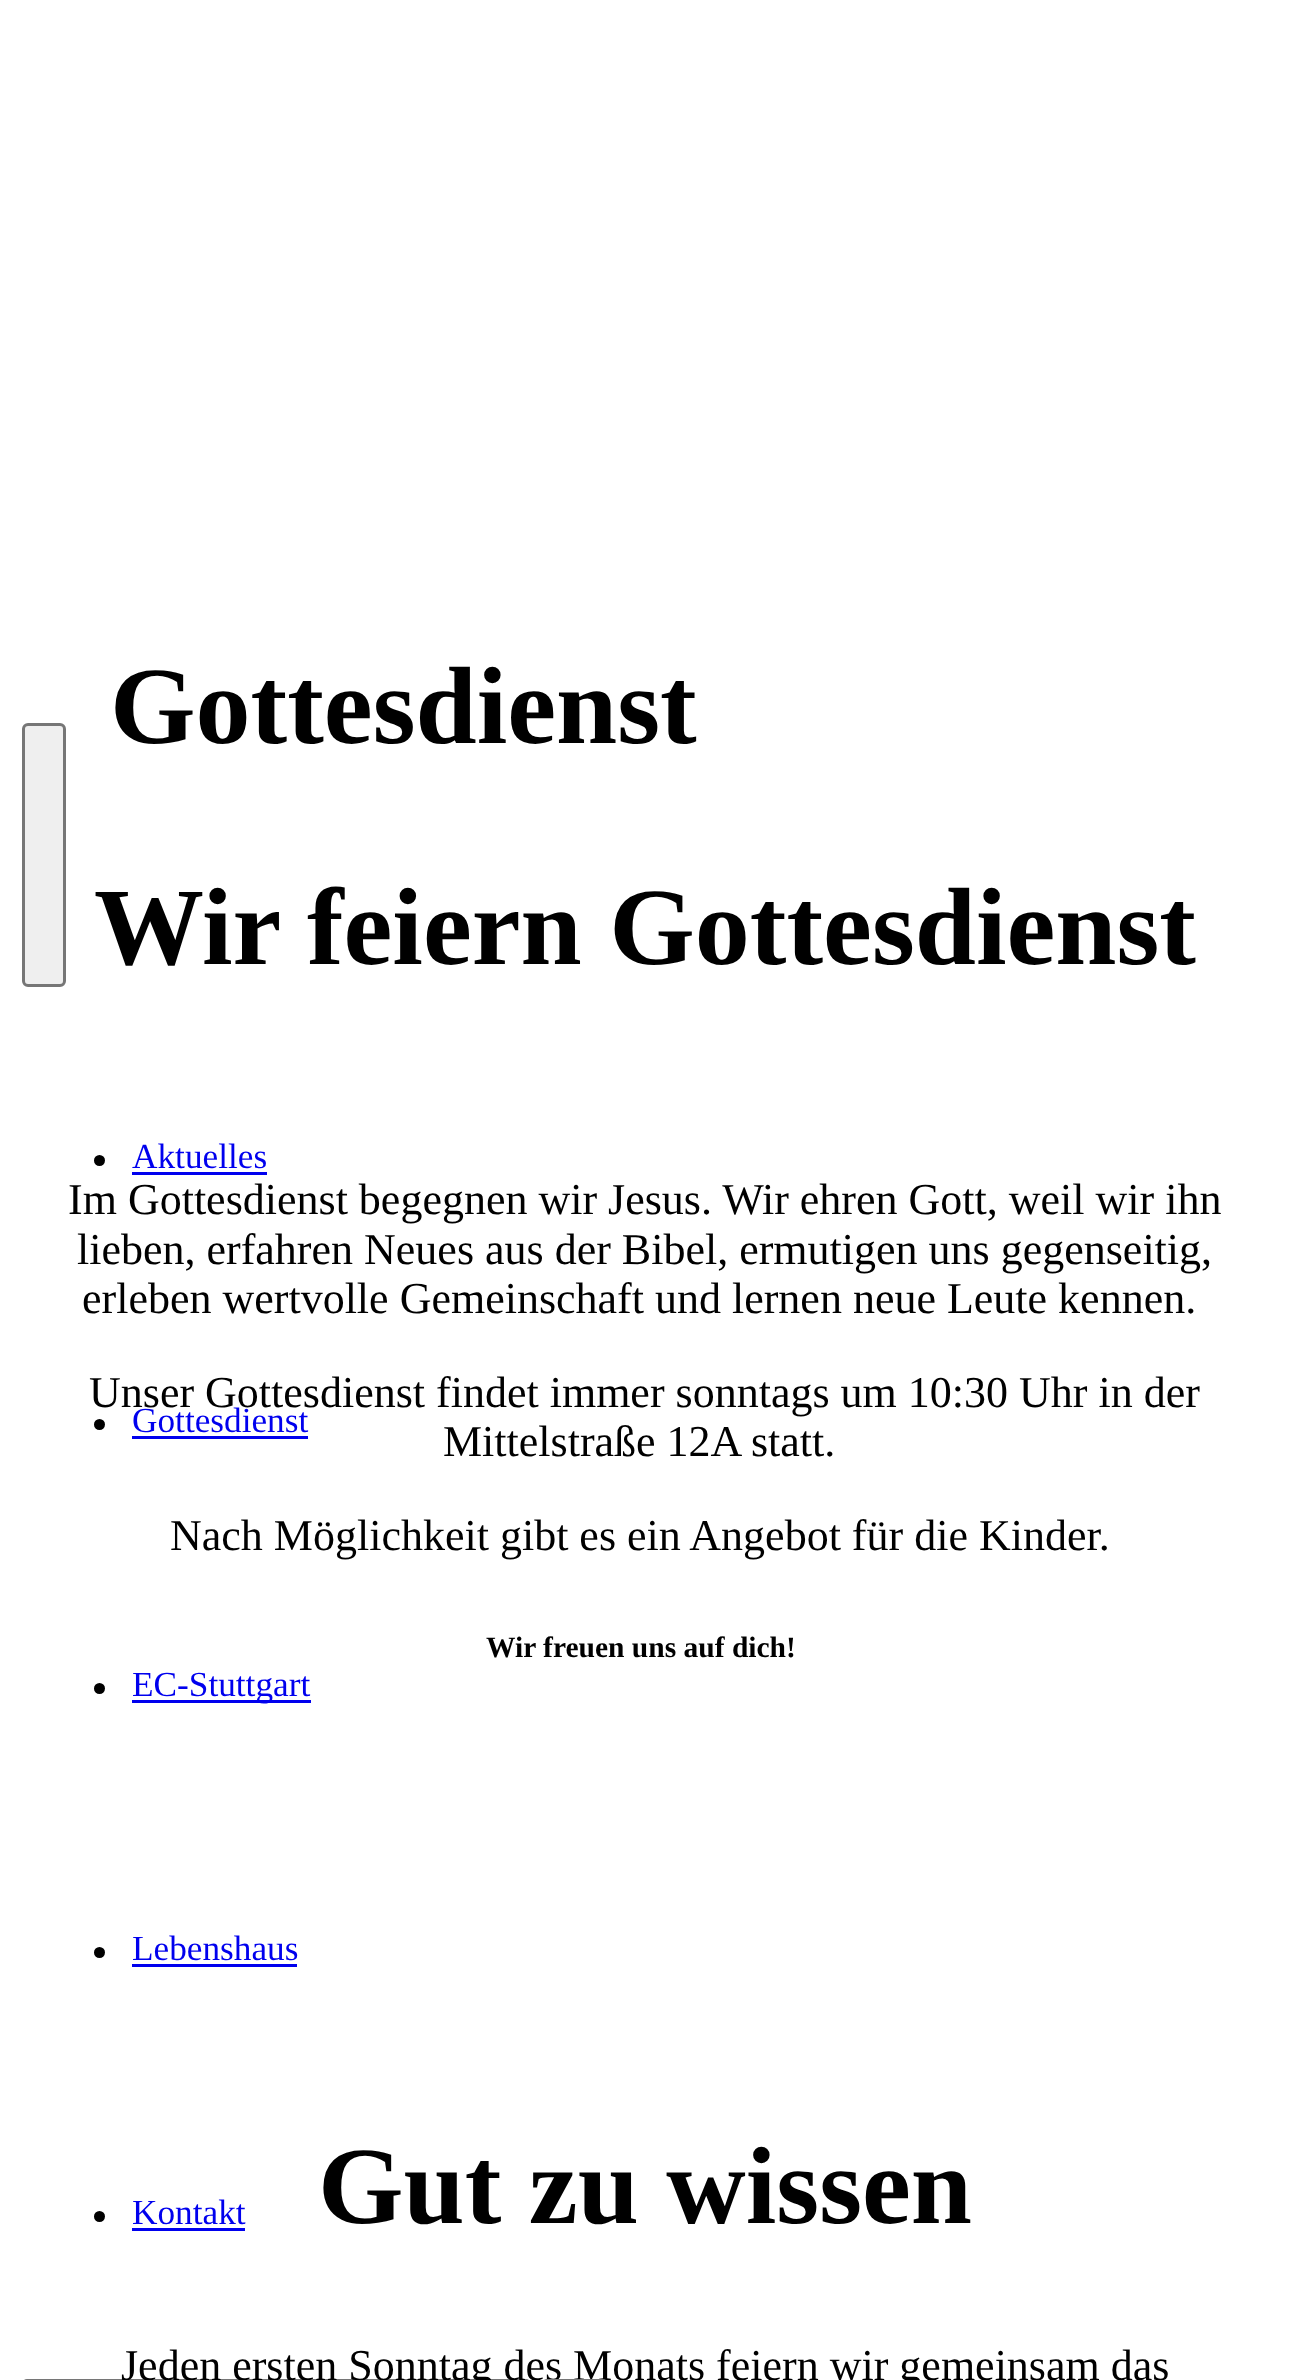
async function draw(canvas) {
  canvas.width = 1289;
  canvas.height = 2380;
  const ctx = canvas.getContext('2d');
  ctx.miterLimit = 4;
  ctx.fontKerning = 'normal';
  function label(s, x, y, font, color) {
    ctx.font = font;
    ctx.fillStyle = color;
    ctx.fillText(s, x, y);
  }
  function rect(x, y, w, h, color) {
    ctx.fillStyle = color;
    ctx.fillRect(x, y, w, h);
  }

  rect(0, 0, 1289, 2380, '#fff');
  label('Gottesdienst', 110, 743, 'bold 110px Liberation Serif', '#000');
  label('Wir feiern Gottesdienst', 94, 964, 'bold 110px Liberation Serif', '#000');
  label('Im Gottesdienst begegnen wir Jesus. Wir ehren Gott, weil wir ihn', 68, 1214, '44px Liberation Serif', '#000');
  label('lieben, erfahren Neues aus der Bibel, ermutigen uns gegenseitig,', 77, 1264, '44px Liberation Serif', '#000');
  label('erleben wertvolle Gemeinschaft und lernen neue Leute kennen.', 82, 1313, '44px Liberation Serif', '#000');
  label('Unser Gottesdienst findet immer sonntags um 10:30 Uhr in der', 89, 1407, '44px Liberation Serif', '#000');
  label('Mittelstraße 12A statt.', 443, 1456, '44px Liberation Serif', '#000');
  label('Nach Möglichkeit gibt es ein Angebot für die Kinder.', 170, 1550, '44px Liberation Serif', '#000');
  label('Wir freuen uns auf dich!', 486, 1657, 'bold 29.5px Liberation Serif', '#000');
  label('Gut zu wissen', 318, 2223, 'bold 110px Liberation Serif', '#000');
  ctx.beginPath();
  ctx.roundRect(23.5, 2380.5, 506, 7, 4.5);
  ctx.strokeStyle = '#767676';
  ctx.lineWidth = 3;
  ctx.stroke();
  label('Jeden ersten Sonntag des Monats feiern wir gemeinsam das', 121, 2380, '44px Liberation Serif', '#000');
  ctx.fillStyle = '#efefef';
  ctx.beginPath();
  ctx.roundRect(23.5, 724.5, 41, 261, 4.5);
  ctx.fill();
  ctx.stroke();
  ctx.fillStyle = '#000';
  ctx.beginPath();
  ctx.arc(99.5, 1160.5, 5.5, 0, 2 * Math.PI);
  ctx.fill();
  label('Aktuelles', 132, 1168, '35.25px Liberation Serif', '#00e');
  rect(132, 1172, 135, 3, '#00e');
  ctx.fillStyle = '#000';
  ctx.beginPath();
  ctx.arc(99.5, 1424.5, 5.5, 0, 2 * Math.PI);
  ctx.fill();
  label('Gottesdienst', 132, 1432, '35.25px Liberation Serif', '#00e');
  rect(132, 1436, 176, 3, '#00e');
  ctx.fillStyle = '#000';
  ctx.beginPath();
  ctx.arc(99.5, 1688.5, 5.5, 0, 2 * Math.PI);
  ctx.fill();
  rect(132, 1700, 179, 3, '#00e');
  label('EC-Stuttgart', 132, 1696, '35.25px Liberation Serif', '#00e');
  ctx.fillStyle = '#000';
  ctx.beginPath();
  ctx.arc(99.5, 1952.5, 5.5, 0, 2 * Math.PI);
  ctx.fill();
  label('Lebenshaus', 132, 1960, '35.25px Liberation Serif', '#00e');
  rect(132, 1964, 165, 3, '#00e');
  ctx.fillStyle = '#000';
  ctx.beginPath();
  ctx.arc(99.5, 2216.5, 5.5, 0, 2 * Math.PI);
  ctx.fill();
  label('Kontakt', 132, 2224, '35.25px Liberation Serif', '#00e');
  rect(132, 2228, 113, 3, '#00e');
  ctx.beginPath();
  ctx.roundRect(543.5, 2380.5, 63, 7, 4.5);
  ctx.stroke();
}

draw(document.querySelector('canvas'));
